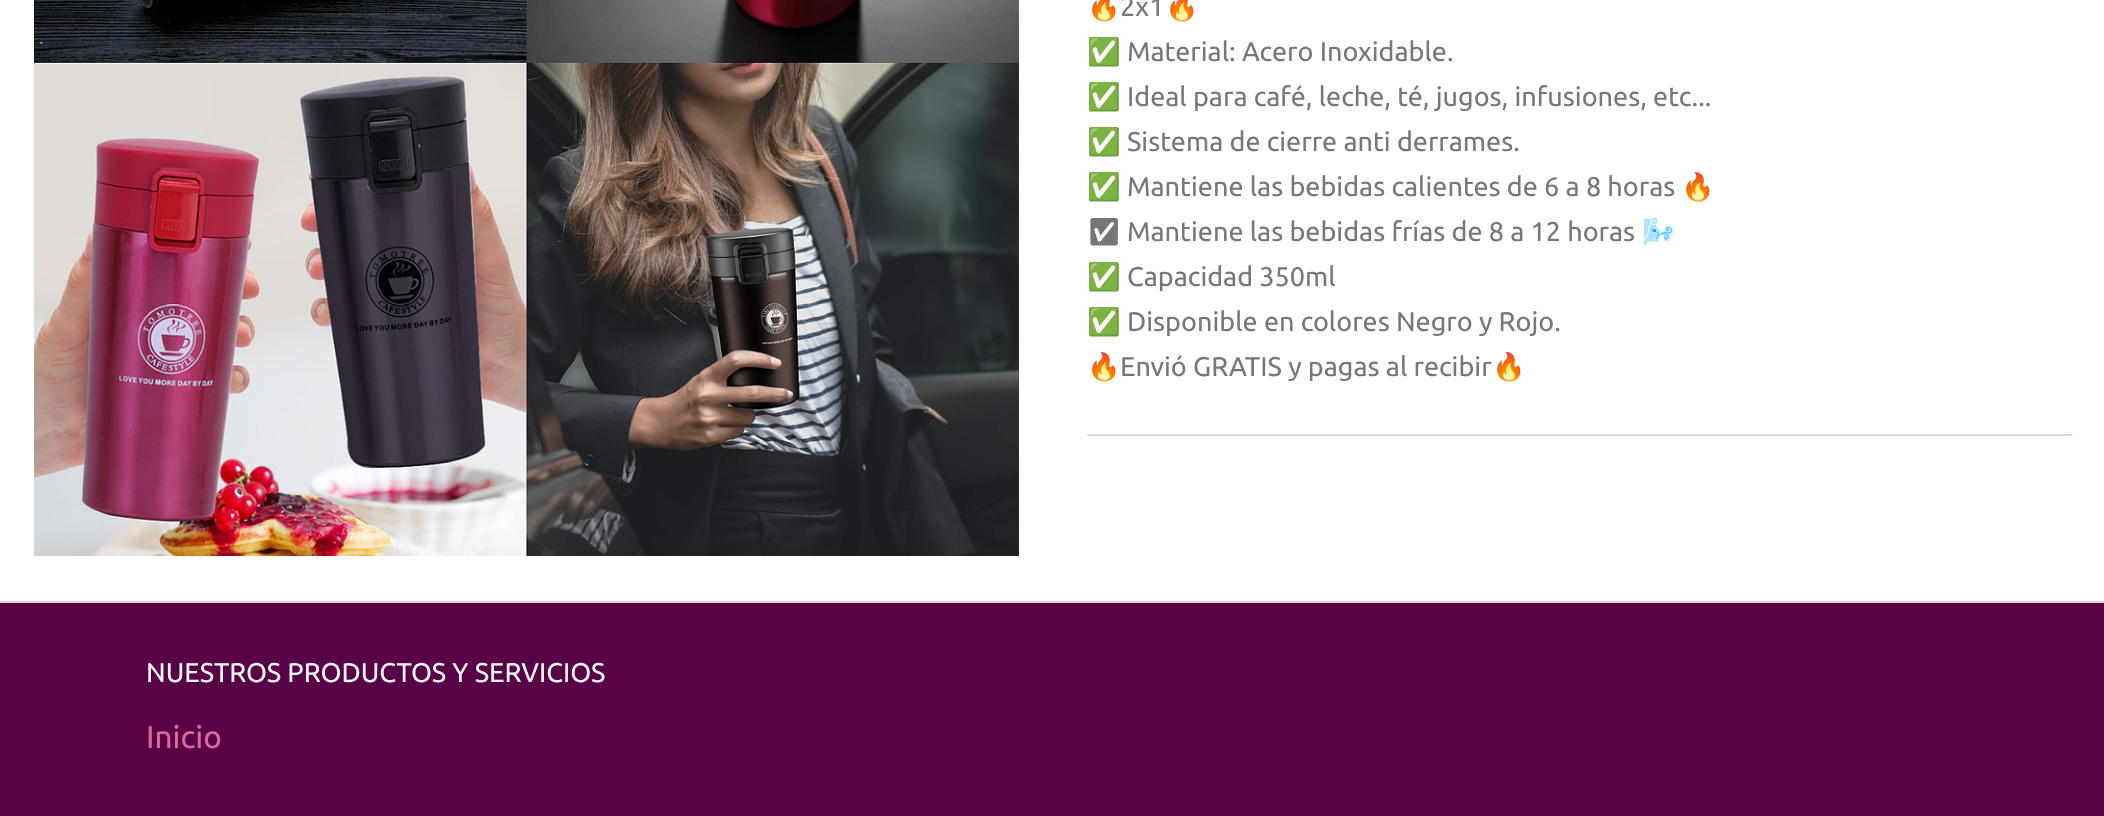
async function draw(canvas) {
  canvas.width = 2104;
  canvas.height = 816;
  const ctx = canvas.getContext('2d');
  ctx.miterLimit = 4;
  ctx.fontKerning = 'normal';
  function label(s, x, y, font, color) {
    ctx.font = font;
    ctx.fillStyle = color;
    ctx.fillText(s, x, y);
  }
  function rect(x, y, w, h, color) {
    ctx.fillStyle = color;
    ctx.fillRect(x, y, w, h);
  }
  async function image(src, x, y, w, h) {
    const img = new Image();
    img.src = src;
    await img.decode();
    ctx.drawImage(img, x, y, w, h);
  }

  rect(0, 0, 2104, 816, '#fff');
  await image('assets/img1.png', 34, 0, 985, 556);
  label('🔥', 1087, 16, '27px Noto Color Emoji', '#777');
  label('2x1', 1120, 16, '27px Ubuntu', '#777');
  label('🔥', 1165, 16, '27px Noto Color Emoji', '#777');
  label('✅', 1087, 61, '27px Noto Color Emoji', '#777');
  label('Material: Acero Inoxidable.', 1127, 61, '27px Ubuntu', '#777');
  label('✅', 1087, 106, '27px Noto Color Emoji', '#777');
  label('Ideal para café, leche, té, jugos, infusiones, etc...', 1127, 106, '27px Ubuntu', '#777');
  label('✅', 1087, 151, '27px Noto Color Emoji', '#777');
  label('Sistema de cierre anti derrames.', 1127, 151, '27px Ubuntu', '#777');
  label('✅', 1087, 196, '27px Noto Color Emoji', '#777');
  label('Mantiene las bebidas calientes de 6 a 8 horas', 1127, 196, '27px Ubuntu', '#777');
  label('🔥', 1681, 196, '27px Noto Color Emoji', '#777');
  label('✅', 1087, 241, '500 27px Noto Emoji', '#777');
  label('Mantiene las bebidas frías de 8 a 12 horas', 1127, 241, '27px Ubuntu', '#777');
  label('🌬', 1642, 241, '27px Noto Color Emoji', '#777');
  label('✅', 1087, 286, '27px Noto Color Emoji', '#777');
  label('Capacidad 350ml', 1127, 286, '27px Ubuntu', '#777');
  label('✅', 1087, 331, '27px Noto Color Emoji', '#777');
  label('Disponible en colores Negro y Rojo.', 1127, 331, '27px Ubuntu', '#777');
  label('🔥', 1087, 376, '27px Noto Color Emoji', '#777');
  label('Envió GRATIS y pagas al recibir', 1120, 376, '27px Ubuntu', '#777');
  label('🔥', 1492, 376, '27px Noto Color Emoji', '#777');
  rect(1087, 434, 985, 2, '#ecd5d6');
  rect(0, 603, 2104, 213, '#590046');
  rect(0, 601, 2104, 2, '#d9d9d9');
  label('NUESTROS PRODUCTOS Y SERVICIOS', 146, 682, '27px Ubuntu', '#fff');
  label('Inicio', 146, 748, '31.5px Ubuntu', '#df699c');
}

draw(document.querySelector('canvas'));
